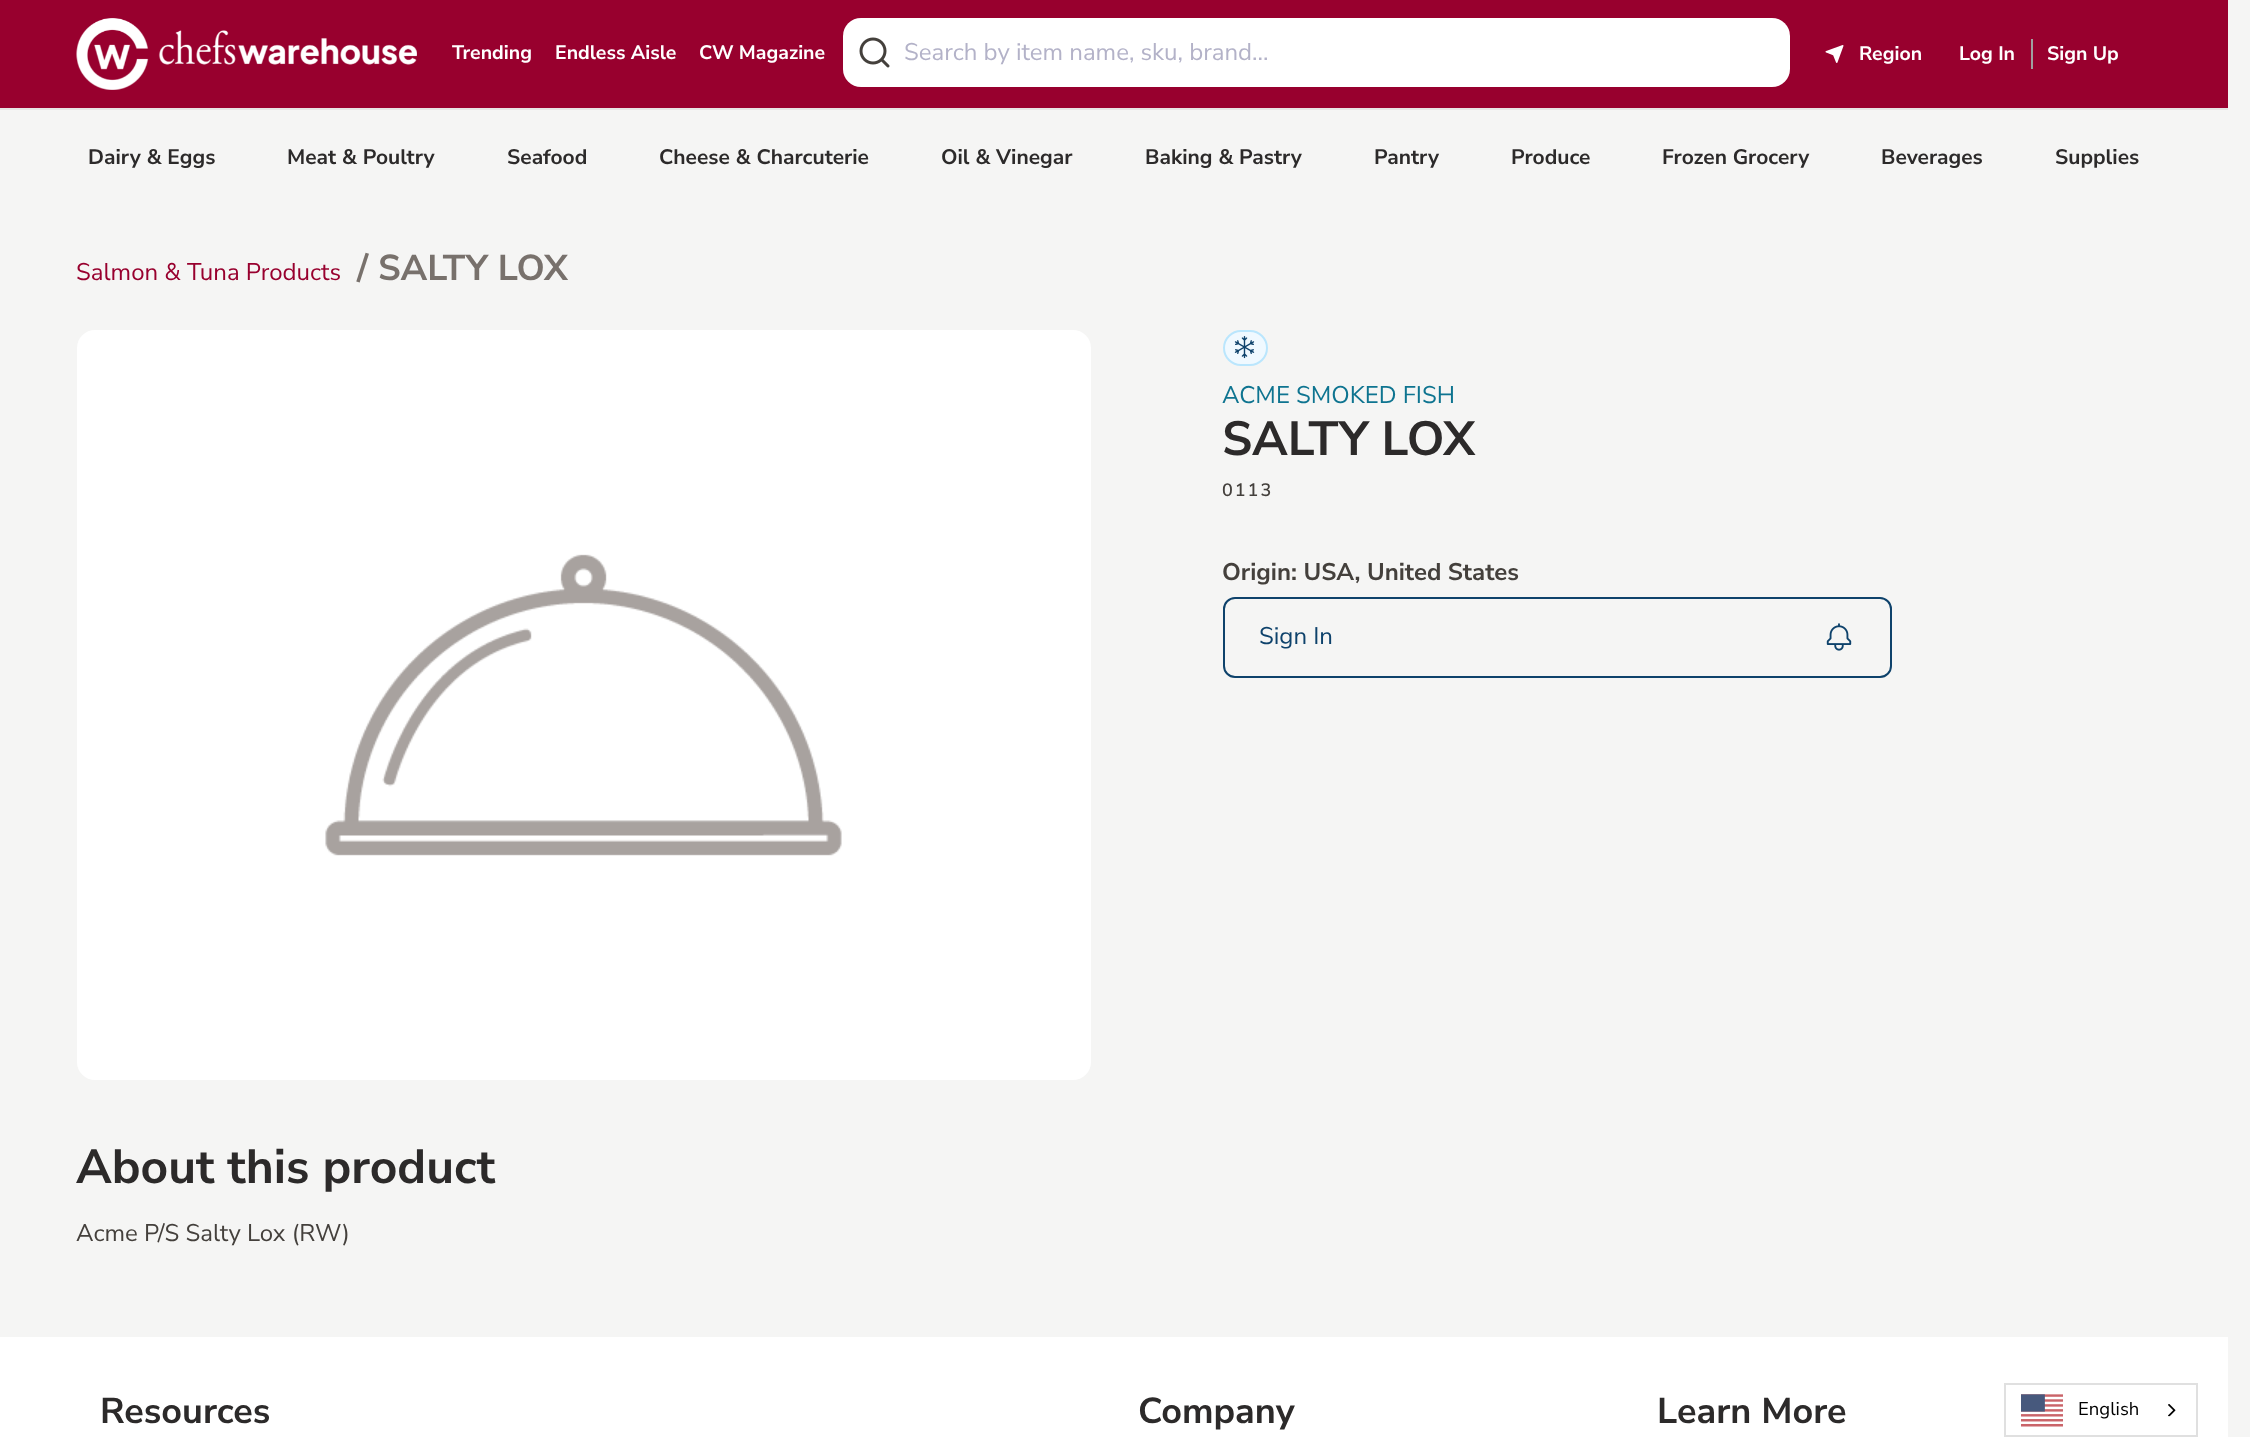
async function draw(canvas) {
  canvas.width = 2250;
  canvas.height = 1437;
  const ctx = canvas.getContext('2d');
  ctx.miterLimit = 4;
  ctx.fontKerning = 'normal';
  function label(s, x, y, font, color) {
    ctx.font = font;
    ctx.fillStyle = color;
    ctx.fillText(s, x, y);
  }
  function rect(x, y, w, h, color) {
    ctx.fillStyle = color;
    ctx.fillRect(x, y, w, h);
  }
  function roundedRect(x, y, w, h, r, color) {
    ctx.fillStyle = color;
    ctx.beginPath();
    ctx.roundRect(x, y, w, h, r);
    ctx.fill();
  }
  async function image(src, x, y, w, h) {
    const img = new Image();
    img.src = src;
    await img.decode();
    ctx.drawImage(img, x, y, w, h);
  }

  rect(0, 0, 2250, 1437, '#f5f5f4');
  rect(0, 0, 2228, 108, '#98002e');
  rect(0, 108, 2228, 2, '#e7e5e4');
  await image('assets/img1.png', 76, 18, 341, 72);
  label('Trending', 452, 59, 'bold 19.5px Nunito Sans', '#fff');
  label('Endless Aisle', 555, 59, 'bold 19.5px Nunito Sans', '#fff');
  label('CW Magazine', 699, 59, 'bold 19.5px Nunito Sans', '#fff');
  roundedRect(843, 18, 947, 69, 18, '#fff');
  await image('assets/img2.png', 859, 37, 31, 31);
  label('Search by item name, sku, brand...', 904, 60, '24px Nunito Sans', '#b3b2c8');
  await image('assets/img3.png', 1825, 45, 19, 18);
  label('Region', 1859, 60, 'bold 19.5px Nunito Sans', '#fff');
  rect(2031, 39, 2, 30, '#9f9f9f');
  label('Log In', 1959, 60, 'bold 19.5px Nunito Sans', '#fff');
  label('Sign Up', 2047, 60, 'bold 19.5px Nunito Sans', '#fff');
  label('Dairy & Eggs', 88, 164, 'bold 21px Nunito Sans', '#2c2a2a');
  label('Meat & Poultry', 287, 164, 'bold 21px Nunito Sans', '#2c2a2a');
  label('Seafood', 507, 164, 'bold 21px Nunito Sans', '#2c2a2a');
  label('Cheese & Charcuterie', 659, 164, 'bold 21px Nunito Sans', '#2c2a2a');
  label('Oil & Vinegar', 941, 164, 'bold 21px Nunito Sans', '#2c2a2a');
  label('Baking & Pastry', 1145, 164, 'bold 21px Nunito Sans', '#2c2a2a');
  label('Pantry', 1374, 164, 'bold 21px Nunito Sans', '#2c2a2a');
  label('Produce', 1511, 164, 'bold 21px Nunito Sans', '#2c2a2a');
  label('Frozen Grocery', 1662, 164, 'bold 21px Nunito Sans', '#2c2a2a');
  label('Beverages', 1881, 164, 'bold 21px Nunito Sans', '#2c2a2a');
  label('Supplies', 2055, 164, 'bold 21px Nunito Sans', '#2c2a2a');
  label('Salmon & Tuna Products', 76, 280, '24px Nunito Sans', '#98002e');
  label('/ SALTY LOX', 357, 280, 'bold 36px Nunito Sans', '#78716c');
  roundedRect(77, 330, 1014, 750, 18, '#fff');
  await image('assets/img4.png', 325, 554, 517, 302);
  ctx.fillStyle = '#f0f9ff';
  ctx.beginPath();
  ctx.roundRect(1224, 331, 43, 34, 17);
  ctx.fill();
  ctx.strokeStyle = '#bae6fd';
  ctx.lineWidth = 2;
  ctx.stroke();
  await image('assets/img5.png', 1234, 336, 21, 23);
  label('ACME SMOKED FISH', 1222, 403, '24px Nunito Sans', '#0e7490');
  label('SALTY LOX', 1222, 455, 'bold 48px Nunito Sans', '#2c2a2a');
  ctx.letterSpacing = '2px';
  label('0113', 1222, 496, '600 18px Nunito Sans', '#44403c');
  ctx.letterSpacing = '0px';
  label('Origin: USA, United States', 1222, 580, 'bold 24px Nunito Sans', '#44403c');
  ctx.beginPath();
  ctx.roundRect(1224, 598, 667, 79, 11);
  ctx.strokeStyle = '#0e426b';
  ctx.stroke();
  label('Sign In', 1259, 644, '24px Nunito Sans', '#0e426b');
  await image('assets/img6.png', 1826, 623, 26, 28);
  label('About this product', 76, 1183, 'bold 48px Nunito Sans', '#2c2a2a');
  label('Acme P/S Salty Lox (RW)', 76, 1241, '24px Nunito Sans', '#44403c');
  rect(0, 1337, 2228, 100, '#fff');
  label('Resources', 100, 1423, 'bold 36px Nunito Sans', '#2c2a2a');
  label('Company', 1138, 1423, 'bold 36px Nunito Sans', '#2c2a2a');
  label('Learn More', 1657, 1423, 'bold 36px Nunito Sans', '#2c2a2a');
  ctx.strokeStyle = '#e0e0e0';
  ctx.strokeRect(2005, 1384, 192, 52);
  await image('assets/img7.png', 2021, 1394, 42, 33);
  label('English', 2078, 1415, '18.5px Nunito Sans', '#000');
  await image('assets/img8.png', 2168, 1404, 8, 13);
}

draw(document.querySelector('canvas'));
